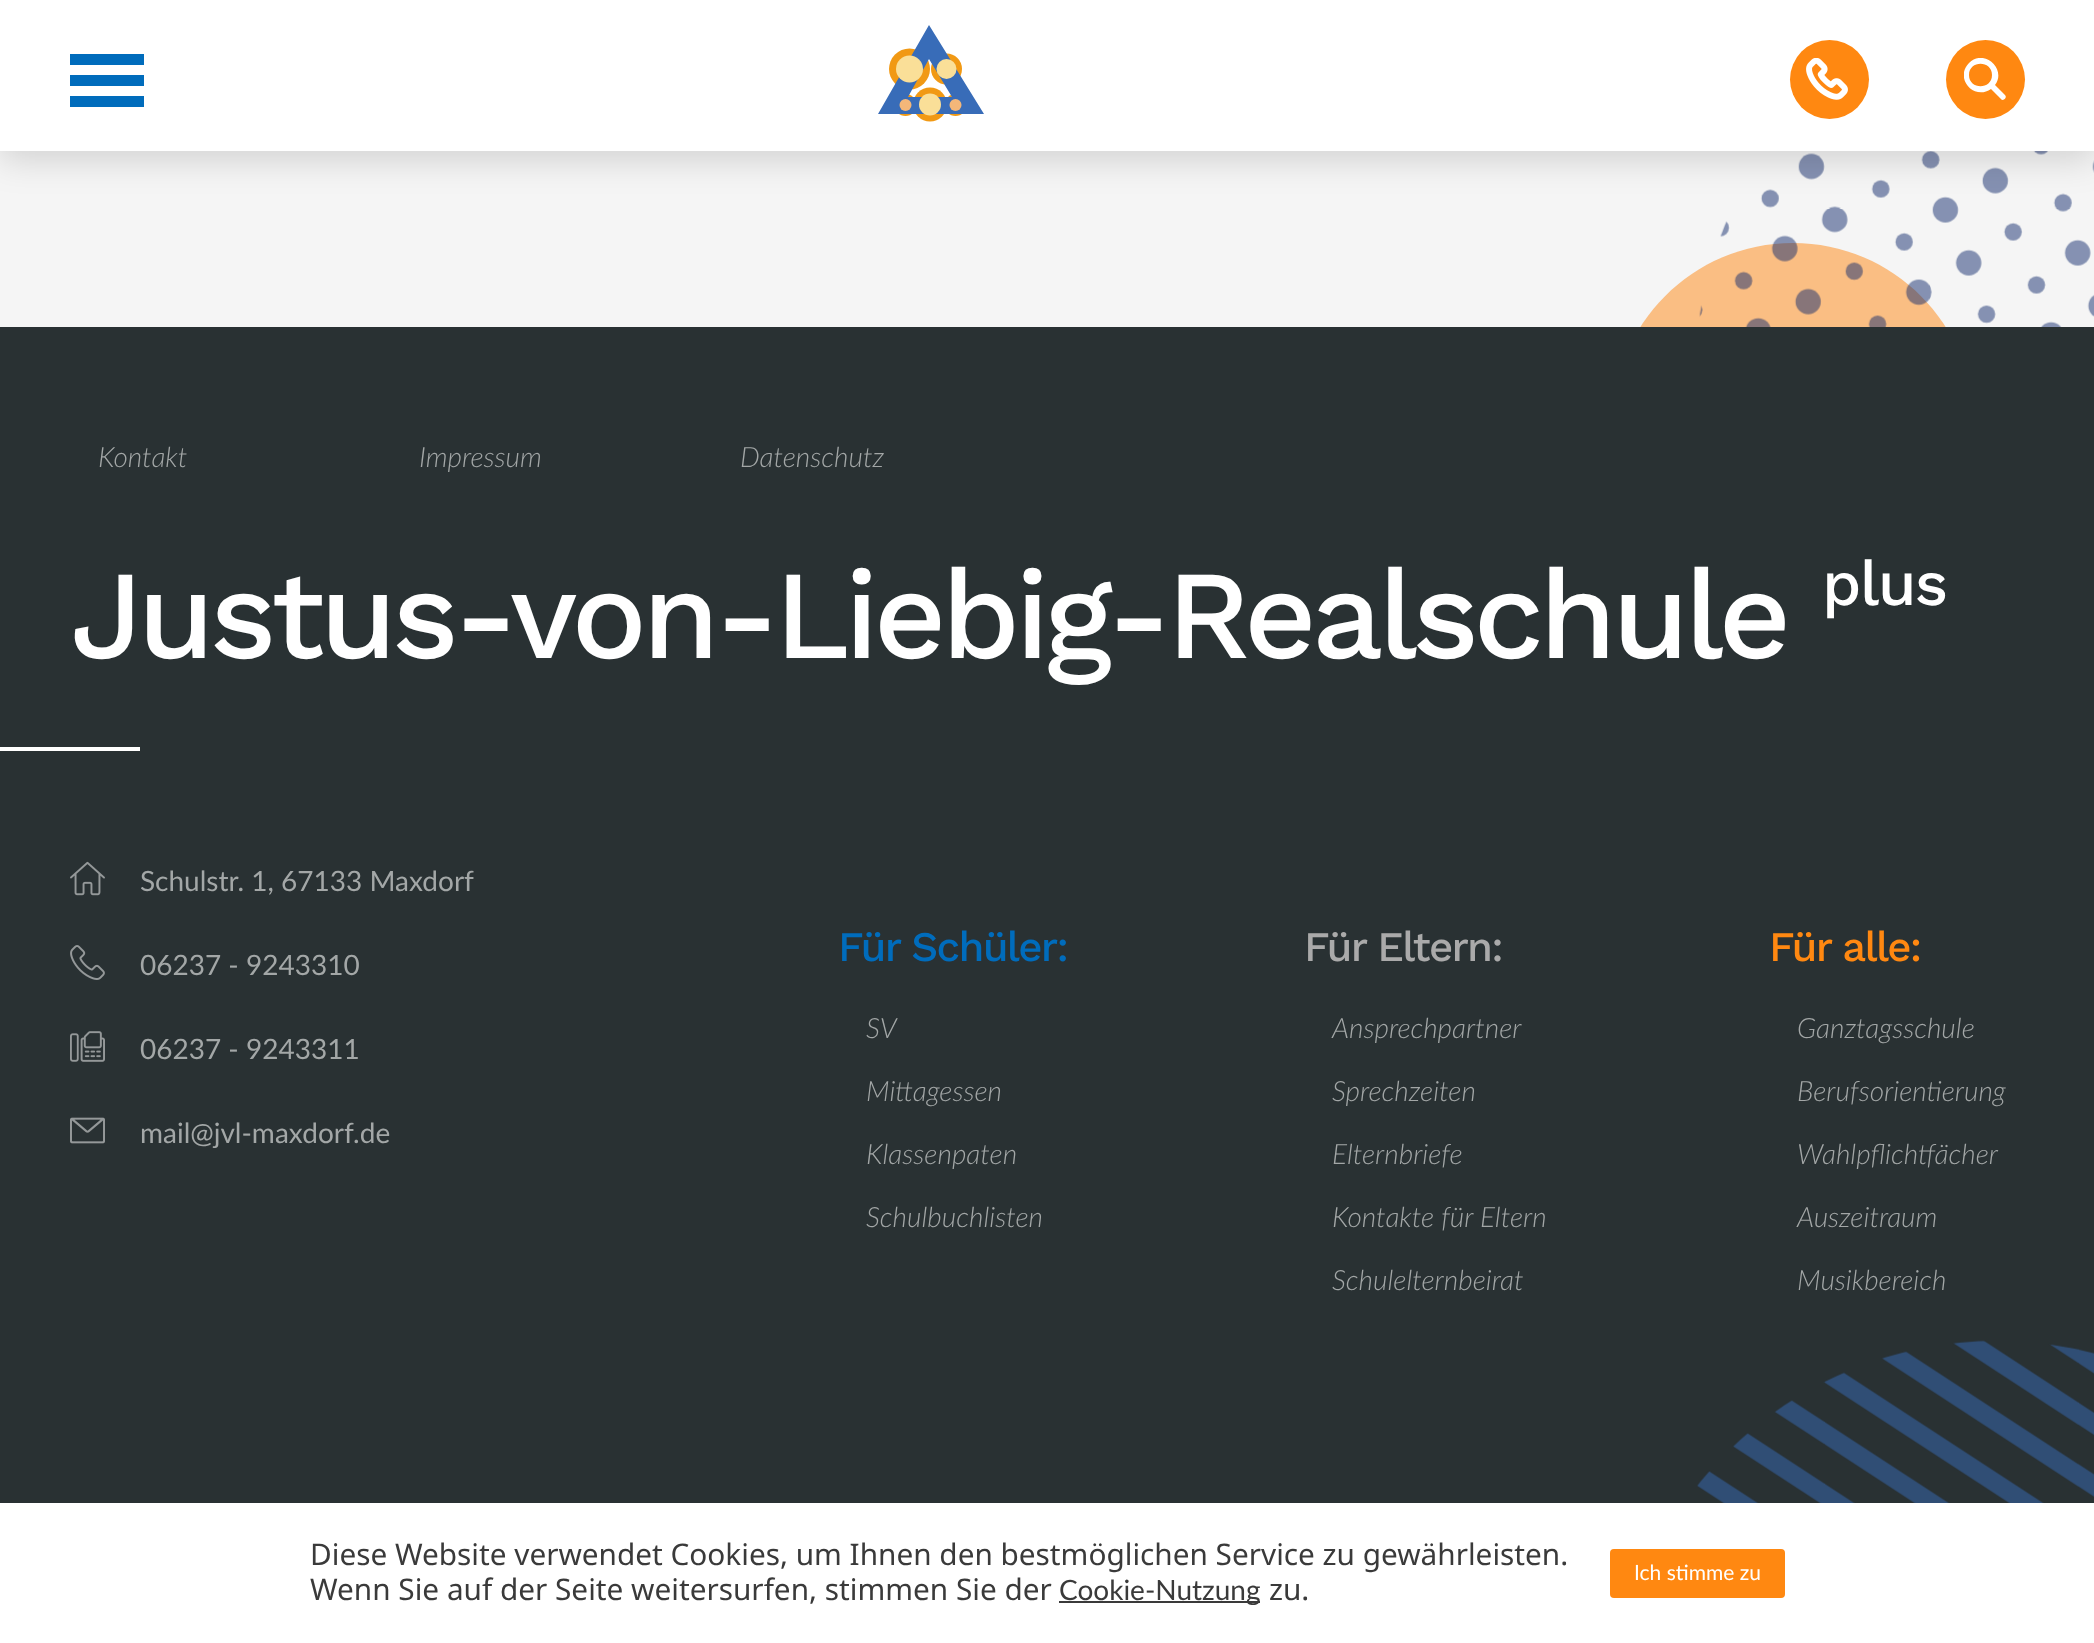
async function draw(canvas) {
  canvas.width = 2094;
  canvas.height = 1643;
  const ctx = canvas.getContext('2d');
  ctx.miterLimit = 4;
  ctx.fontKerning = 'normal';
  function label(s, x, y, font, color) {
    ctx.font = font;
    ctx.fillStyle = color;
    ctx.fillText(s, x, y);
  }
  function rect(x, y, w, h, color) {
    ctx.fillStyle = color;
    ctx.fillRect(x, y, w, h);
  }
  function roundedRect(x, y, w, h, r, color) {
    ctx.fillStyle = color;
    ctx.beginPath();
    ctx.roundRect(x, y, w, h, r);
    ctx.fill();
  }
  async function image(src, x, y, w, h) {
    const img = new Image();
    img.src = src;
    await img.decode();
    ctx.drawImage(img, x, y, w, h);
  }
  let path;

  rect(0, 0, 2094, 1643, '#f5f5f5');
  ctx.fillStyle = '#fabe83';
  path = new Path2D('M1974 425C1974 525 1893 606 1793 606C1693 606 1612 525 1612 425C1612 324 1693 243 1793 243C1893 243 1974 324 1974 425Z');
  ctx.fill(path);
  await image('assets/img2.png', 1699, 151, 395, 176);
  ctx.fillStyle = '#00000026';
  ctx.filter = 'blur(17.5px)';
  ctx.beginPath();
  ctx.rect(0, 9, 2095, 150);
  ctx.fill();
  ctx.filter = 'none';
  rect(0, 0, 2094, 151, '#fff');
  rect(70, 54, 74, 11, '#006cbc');
  rect(70, 75, 74, 11, '#006cbc');
  rect(70, 96, 74, 11, '#006cbc');
  ctx.fillStyle = '#f19914';
  ctx.beginPath();
  ctx.arc(909.5, 69, 20.5, 0, 2 * Math.PI);
  ctx.fill();
  ctx.beginPath();
  ctx.arc(946.5, 69, 15.5, 0, 2 * Math.PI);
  ctx.fill();
  ctx.fillStyle = '#f19913';
  ctx.beginPath();
  ctx.arc(905.5, 105, 11, 0, 2 * Math.PI);
  ctx.fill();
  ctx.beginPath();
  ctx.arc(955.5, 105, 11, 0, 2 * Math.PI);
  ctx.fill();
  ctx.fillStyle = '#f19914';
  ctx.beginPath();
  ctx.arc(930, 104.5, 17, 0, 2 * Math.PI);
  ctx.fill();
  ctx.fillStyle = '#386cb8';
  path = new Path2D('M929 25L878 114H984ZM929 59L952 97H908Z');
  ctx.fill(path);
  ctx.fillStyle = '#fadf98';
  ctx.beginPath();
  ctx.arc(909.5, 69, 13.5, 0, 2 * Math.PI);
  ctx.fill();
  ctx.beginPath();
  ctx.arc(946.5, 69, 10, 0, 2 * Math.PI);
  ctx.fill();
  ctx.beginPath();
  ctx.arc(930, 104.5, 11, 0, 2 * Math.PI);
  ctx.fill();
  ctx.fillStyle = '#f4b779';
  ctx.beginPath();
  ctx.arc(905.5, 105, 6, 0, 2 * Math.PI);
  ctx.fill();
  ctx.beginPath();
  ctx.arc(955.5, 105, 6, 0, 2 * Math.PI);
  ctx.fill();
  ctx.fillStyle = '#f81';
  ctx.beginPath();
  ctx.arc(1829.5, 79.5, 39.5, 0, 2 * Math.PI);
  ctx.fill();
  await image('assets/img1.png', 1806, 58, 42, 42);
  ctx.beginPath();
  ctx.arc(1985.5, 79.5, 39.5, 0, 2 * Math.PI);
  ctx.fill();
  ctx.save();
  ctx.beginPath();
  ctx.rect(1964, 58, 42, 42);
  ctx.clip();
  ctx.fillStyle = '#fff';
  path = new Path2D('M2005 95L1995 85C2007 69 1984 48 1969 63C1954 78 1974 101 1991 89L2002 100C2005 100 2007 97 2005 95M1969 75C1969 60 1992 60 1992 75C1992 90 1969 90 1969 75');
  ctx.fill(path);
  ctx.restore();
  rect(0, 327, 2094, 1176, '#293133');
  label('Kontakt', 98, 467, 'italic 300 28px Lato', '#a3a7a7');
  label('Impressum', 419, 467, 'italic 300 28px Lato', '#a3a7a7');
  label('Datenschutz', 740, 467, 'italic 300 28px Lato', '#a3a7a7');
  ctx.letterSpacing = '-5.25px';
  label('Justus-von-Liebig-Realschule', 70, 658, '500 126px Work Sans', '#fff');
  ctx.letterSpacing = '-1.75px';
  label('plus', 1822, 605, '500 63px Work Sans', '#fff');
  rect(0, 747, 140, 4, '#fff');
  await image('assets/img3.png', 70, 861, 35, 35);
  ctx.letterSpacing = '0px';
  label('Schulstr. 1, 67133 Maxdorf', 140, 891, '28px Lato', '#a3a7a7');
  await image('assets/img4.png', 70, 945, 35, 35);
  label('06237 - 9243310', 140, 975, '28px Lato', '#a3a7a7');
  await image('assets/img5.png', 70, 1031, 35, 31);
  label('06237 - 9243311', 140, 1059, '28px Lato', '#a3a7a7');
  await image('assets/img6.png', 70, 1117, 35, 27);
  label('mail@jvl-maxdorf.de', 140, 1143, '28px Lato', '#a3a7a7');
  ctx.letterSpacing = '-1.75px';
  label('Für Schüler:', 838, 961, '500 42px Work Sans', '#006cbc');
  ctx.letterSpacing = '0px';
  label('SV', 866, 1038, 'italic 300 28px Lato', '#a3a7a7');
  label('Mittagessen', 866, 1101, 'italic 300 28px Lato', '#a3a7a7');
  label('Klassenpaten', 866, 1164, 'italic 300 28px Lato', '#a3a7a7');
  label('Schulbuchlisten', 866, 1227, 'italic 300 28px Lato', '#a3a7a7');
  ctx.letterSpacing = '-1.75px';
  label('Für Eltern:', 1304, 961, '500 42px Work Sans', '#aaa');
  ctx.letterSpacing = '0px';
  label('Ansprechpartner', 1332, 1038, 'italic 300 28px Lato', '#a3a7a7');
  label('Sprechzeiten', 1332, 1101, 'italic 300 28px Lato', '#a3a7a7');
  label('Elternbriefe', 1332, 1164, 'italic 300 28px Lato', '#a3a7a7');
  label('Kontakte für Eltern', 1332, 1227, 'italic 300 28px Lato', '#a3a7a7');
  label('Schulelternbeirat', 1332, 1290, 'italic 300 28px Lato', '#a3a7a7');
  ctx.letterSpacing = '-1.75px';
  label('Für alle:', 1769, 961, '500 42px Work Sans', '#f81');
  ctx.letterSpacing = '0px';
  label('Ganztagsschule', 1797, 1038, 'italic 300 28px Lato', '#a3a7a7');
  label('Berufsorientierung', 1797, 1101, 'italic 300 28px Lato', '#a3a7a7');
  label('Wahlpflichtfächer', 1797, 1164, 'italic 300 28px Lato', '#a3a7a7');
  label('Auszeitraum', 1797, 1227, 'italic 300 28px Lato', '#a3a7a7');
  label('Musikbereich', 1797, 1290, 'italic 300 28px Lato', '#a3a7a7');
  await image('assets/img7.png', 1697, 1340, 397, 163);
  rect(0, 1503, 2094, 140, '#fff');
  label('Diese Website verwendet Cookies, um Ihnen den bestmöglichen Service zu gewährleisten.', 310, 1565, '29.75px Noto Sans', '#3a3a3a');
  label('Wenn Sie auf der Seite weitersurfen, stimmen Sie der', 310, 1600, '29.75px Noto Sans', '#3a3a3a');
  rect(1059, 1601, 201, 2, '#3a3a3a');
  label('Cookie-Nutzung', 1059, 1600, '28px Lato', '#3a3a3a');
  label('zu.', 1269, 1600, '29.75px Noto Sans', '#3a3a3a');
  roundedRect(1610, 1549, 175, 49, 4, '#f81');
  label('Ich stimme zu', 1634, 1580, '21px Lato', '#fff');
}

draw(document.querySelector('canvas'));
